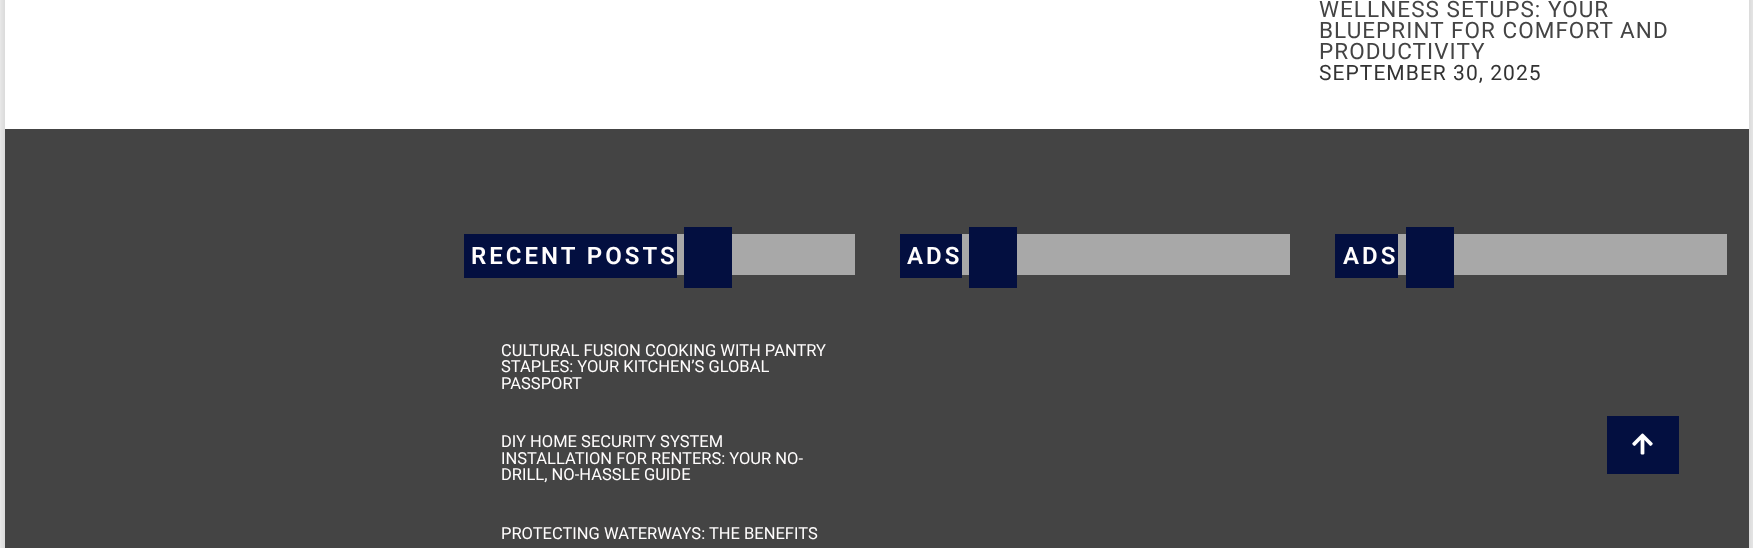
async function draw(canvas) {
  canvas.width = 1753;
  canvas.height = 548;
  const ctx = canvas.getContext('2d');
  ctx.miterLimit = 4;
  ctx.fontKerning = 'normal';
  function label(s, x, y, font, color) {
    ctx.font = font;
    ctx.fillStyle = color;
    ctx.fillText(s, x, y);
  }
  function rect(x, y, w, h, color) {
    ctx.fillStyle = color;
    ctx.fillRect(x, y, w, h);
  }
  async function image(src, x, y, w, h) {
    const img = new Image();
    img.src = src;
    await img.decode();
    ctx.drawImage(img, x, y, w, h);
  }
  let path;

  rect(0, 0, 1753, 548, '#fff');
  ctx.save();
  path = new Path2D('M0 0H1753V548H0ZM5-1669H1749V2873H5Z');
  ctx.clip(path, 'evenodd');
  ctx.fillStyle = '#00000026';
  ctx.filter = 'blur(10px)';
  ctx.beginPath();
  ctx.rect(5, -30, 1744, 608);
  ctx.fill();
  ctx.filter = 'none';
  ctx.filter = 'blur(10px)';
  ctx.beginPath();
  ctx.rect(5, -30, 1744, 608);
  ctx.fill();
  ctx.filter = 'none';
  ctx.restore();
  ctx.letterSpacing = '1.05px';
  label('WELLNESS SETUPS: YOUR', 1319, 17, '22.5px Roboto', '#444');
  label('BLUEPRINT FOR COMFORT AND', 1319, 38, '22.5px Roboto', '#444');
  label('PRODUCTIVITY', 1319, 59, '22.5px Roboto', '#444');
  label('SEPTEMBER 30, 2025', 1319, 80, '21px Roboto', '#333');
  rect(5, 129, 1744, 419, '#444');
  rect(677, 234, 178, 41, '#a8a8a8');
  rect(464, 234, 213, 44, '#030f40');
  ctx.letterSpacing = '3px';
  label('RECENT POSTS', 471, 264, '600 24px Roboto', '#fffdfd');
  rect(684, 227, 48, 61, '#030f40');
  ctx.letterSpacing = '0px';
  label('CULTURAL FUSION COOKING WITH PANTRY', 501, 356, '16.5px Roboto', '#fffdfd');
  label('STAPLES: YOUR KITCHEN’S GLOBAL', 501, 372, '16.5px Roboto', '#fffdfd');
  label('PASSPORT', 501, 389, '16.5px Roboto', '#fffdfd');
  label('DIY HOME SECURITY SYSTEM', 501, 447, '16.5px Roboto', '#fffdfd');
  label('INSTALLATION FOR RENTERS: YOUR NO-', 501, 464, '16.5px Roboto', '#fffdfd');
  label('DRILL, NO-HASSLE GUIDE', 501, 480, '16.5px Roboto', '#fffdfd');
  label('PROTECTING WATERWAYS: THE BENEFITS', 501, 539, '16.5px Roboto', '#fffdfd');
  rect(962, 234, 328, 41, '#a8a8a8');
  rect(900, 234, 62, 44, '#030f40');
  ctx.letterSpacing = '3px';
  label('ADS', 907, 264, '600 24px Roboto', '#fffdfd');
  rect(969, 227, 48, 61, '#030f40');
  rect(1398, 234, 329, 41, '#a8a8a8');
  rect(1335, 234, 63, 44, '#030f40');
  label('ADS', 1343, 264, '600 24px Roboto', '#fffdfd');
  rect(1406, 227, 48, 61, '#030f40');
  rect(1607, 416, 72, 58, '#030f40');
  await image('assets/img1.png', 1632, 433, 21, 22);
}

draw(document.querySelector('canvas'));
